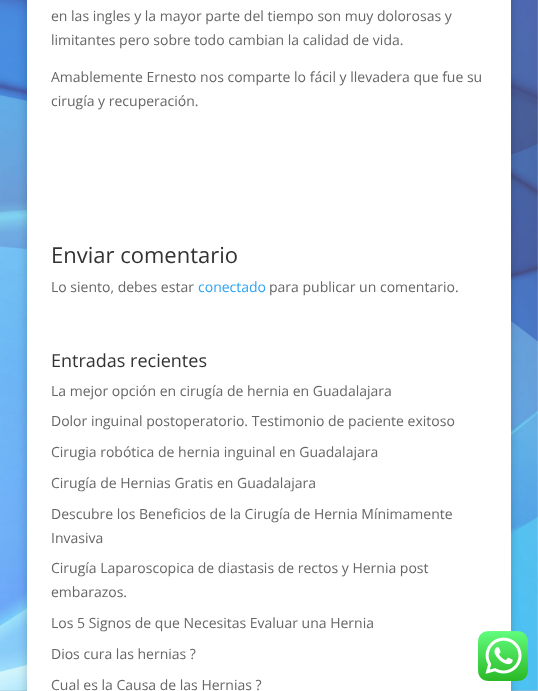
async function draw(canvas) {
  canvas.width = 538;
  canvas.height = 691;
  const ctx = canvas.getContext('2d');
  ctx.miterLimit = 4;
  ctx.fontKerning = 'normal';
  function label(s, x, y, font, color) {
    ctx.font = font;
    ctx.fillStyle = color;
    ctx.fillText(s, x, y);
  }
  function rect(x, y, w, h, color) {
    ctx.fillStyle = color;
    ctx.fillRect(x, y, w, h);
  }
  async function image(src, x, y, w, h) {
    const img = new Image();
    img.src = src;
    await img.decode();
    ctx.drawImage(img, x, y, w, h);
  }

  rect(0, 0, 538, 691, '#fff');
  await image('assets/img1.png', 0, 0, 538, 691);
  ctx.fillStyle = '#00000033';
  ctx.filter = 'blur(5px)';
  ctx.beginPath();
  ctx.rect(27, -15, 484, 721);
  ctx.fill();
  ctx.filter = 'none';
  rect(27, 0, 484, 691, '#fff');
  label('en las ingles y la mayor parte del tiempo son muy dolorosas y', 51, 21, '14px Open Sans', '#666');
  label('limitantes pero sobre todo cambian la calidad de vida.', 51, 45, '14px Open Sans', '#666');
  label('Amablemente Ernesto nos comparte lo fácil y llevadera que fue su', 51, 82, '14px Open Sans', '#666');
  label('cirugía y recuperación.', 51, 106, '14px Open Sans', '#666');
  label('Enviar comentario', 51, 263, '22px Open Sans', '#333');
  label('Lo siento, debes estar', 51, 292, '14px Open Sans', '#666');
  label('conectado', 198, 292, '14px Open Sans', '#2ea3f2');
  label('para publicar un comentario.', 269, 292, '14px Open Sans', '#666');
  label('Entradas recientes', 51, 367, '18px Open Sans', '#333');
  label('La mejor opción en cirugía de hernia en Guadalajara', 51, 396, '14px Open Sans', '#666');
  label('Dolor inguinal postoperatorio. Testimonio de paciente exitoso', 51, 426, '14px Open Sans', '#666');
  label('Cirugia robótica de hernia inguinal en Guadalajara', 51, 457, '14px Open Sans', '#666');
  label('Cirugía de Hernias Gratis en Guadalajara', 51, 488, '14px Open Sans', '#666');
  label('Descubre los Beneficios de la Cirugía de Hernia Mínimamente', 51, 519, '14px Open Sans', '#666');
  label('Invasiva', 51, 543, '14px Open Sans', '#666');
  label('Cirugía Laparoscopica de diastasis de rectos y Hernia post', 51, 573, '14px Open Sans', '#666');
  label('embarazos.', 51, 597, '14px Open Sans', '#666');
  label('Los 5 Signos de que Necesitas Evaluar una Hernia', 51, 628, '14px Open Sans', '#666');
  label('Dios cura las hernias ?', 51, 659, '14px Open Sans', '#666');
  label('Cual es la Causa de las Hernias ?', 51, 690, '14px Open Sans', '#666');
  await image('assets/img2.png', 478, 631, 50, 50);
}

draw(document.querySelector('canvas'));
